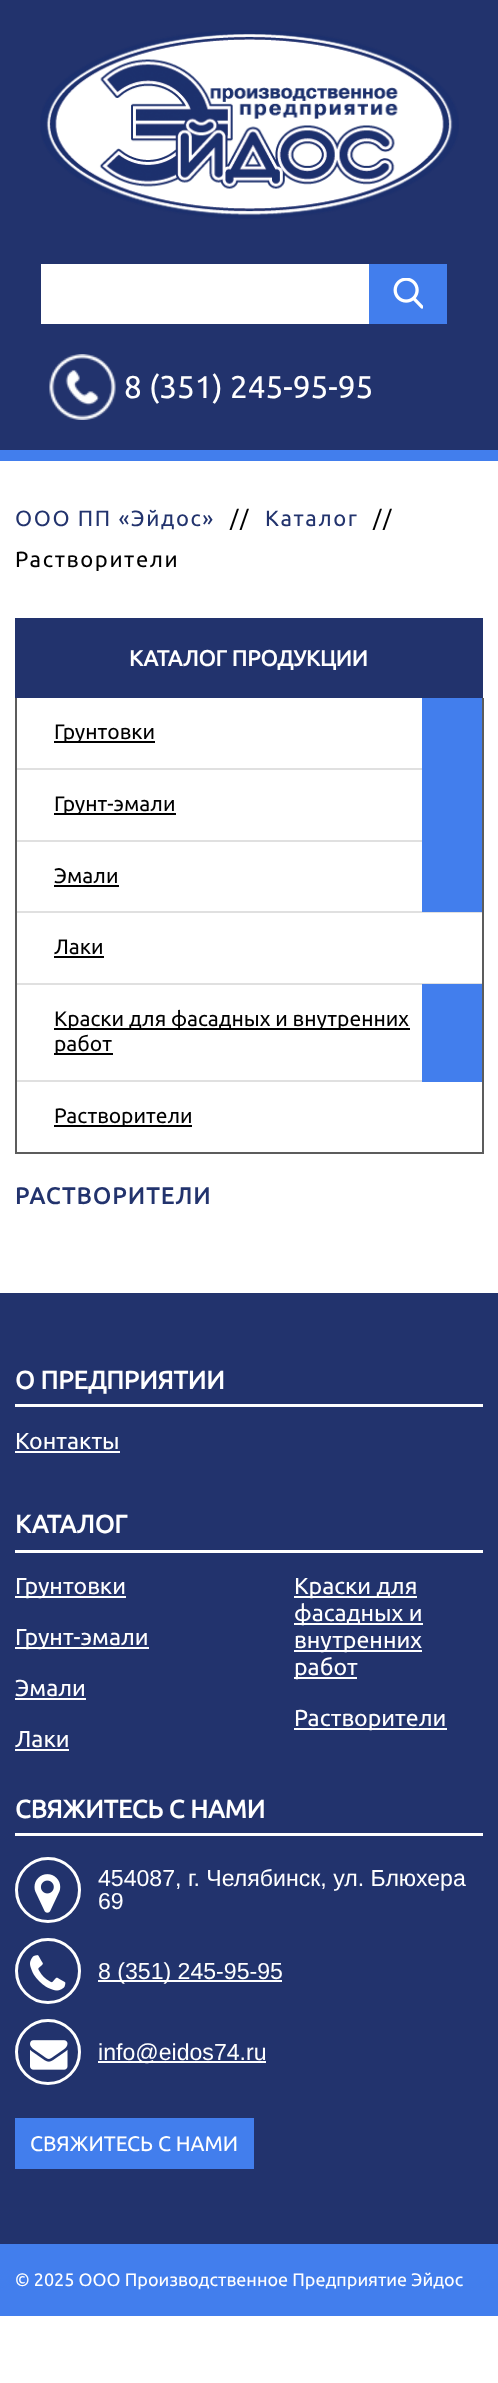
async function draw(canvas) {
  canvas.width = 498;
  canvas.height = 2383;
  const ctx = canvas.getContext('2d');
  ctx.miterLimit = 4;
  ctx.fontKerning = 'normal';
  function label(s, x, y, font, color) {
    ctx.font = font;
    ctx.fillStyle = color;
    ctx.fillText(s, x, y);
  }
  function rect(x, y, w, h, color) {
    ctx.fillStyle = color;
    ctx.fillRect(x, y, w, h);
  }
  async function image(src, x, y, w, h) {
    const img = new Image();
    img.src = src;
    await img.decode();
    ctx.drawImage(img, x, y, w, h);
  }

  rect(0, 0, 498, 2383, '#fff');
  rect(0, 0, 498, 450, '#22336d');
  rect(0, 450, 498, 11, '#427eed');
  await image('assets/img1.png', 40, 30, 419, 189);
  rect(41, 264, 328, 60, '#fff');
  rect(369, 264, 78, 60, '#427eed');
  await image('assets/img2.png', 393, 278, 30, 31);
  await image('assets/img3.png', 49, 354, 67, 66);
  label('8 (351) 245-95-95', 124, 398, '31.5px Ubuntu', '#fff');
  ctx.letterSpacing = '1.6px';
  label('ООО ПП «Эйдос»', 15, 526, '22px Ubuntu', '#22336d');
  label('//', 230, 526, '22px Ubuntu', '#000');
  label('Каталог', 265, 526, '22px Ubuntu', '#22336d');
  label('//', 373, 526, '22px Ubuntu', '#000');
  label('Растворители', 15, 567, '22px Ubuntu', '#000');
  rect(15, 618, 468, 80, '#22336d');
  ctx.letterSpacing = '0px';
  label('КАТАЛОГ ПРОДУКЦИИ', 129, 666, 'bold 22px Ubuntu', '#fff');
  rect(482, 698, 2, 456, '#5c5c5c');
  rect(15, 1152, 468, 2, '#5c5c5c');
  rect(15, 698, 2, 456, '#5c5c5c');
  rect(17, 768, 405, 2, '#e0e0e0');
  rect(54, 741, 101, 2, '#000');
  label('Грунтовки', 54, 739, '21px Ubuntu', '#000');
  rect(17, 911, 465, 2, '#e0e0e0');
  rect(422, 698, 60, 214, '#427eed');
  rect(17, 840, 405, 2, '#e0e0e0');
  rect(54, 813, 122, 2, '#000');
  label('Грунт-эмали', 54, 811, '21px Ubuntu', '#000');
  label('Эмали', 54, 883, '21px Ubuntu', '#000');
  rect(54, 885, 65, 2, '#000');
  rect(17, 983, 465, 2, '#e0e0e0');
  label('Лаки', 54, 954, '21px Ubuntu', '#000');
  rect(54, 956, 50, 2, '#000');
  rect(17, 1080, 405, 2, '#e0e0e0');
  rect(54, 1028, 356, 2, '#000');
  label('Краски для фасадных и внутренних', 54, 1026, '21px Ubuntu', '#000');
  rect(54, 1053, 59, 2, '#000');
  label('работ', 54, 1051, '21px Ubuntu', '#000');
  rect(422, 984, 60, 98, '#427eed');
  rect(54, 1125, 138, 2, '#000');
  label('Растворители', 54, 1123, '21px Ubuntu', '#000');
  ctx.letterSpacing = '1.5px';
  label('РАСТВОРИТЕЛИ', 15, 1204, 'bold 23.1px Ubuntu', '#22336d');
  rect(0, 1293, 498, 951, '#22336d');
  rect(15, 1404, 468, 3, '#fff');
  ctx.letterSpacing = '0px';
  label('О ПРЕДПРИЯТИИ', 15, 1389, 'bold 25.25px Ubuntu', '#fff');
  label('Контакты', 15, 1449, '23.1px Ubuntu', '#fff');
  rect(15, 1451, 105, 2, '#fff');
  rect(15, 1550, 468, 3, '#fff');
  label('КАТАЛОГ', 15, 1533, 'bold 25.25px Ubuntu', '#fff');
  rect(15, 1596, 111, 2, '#fff');
  label('Грунтовки', 15, 1594, '23.1px Ubuntu', '#fff');
  rect(294, 1596, 123, 2, '#fff');
  label('Краски для', 294, 1594, '23.1px Ubuntu', '#fff');
  rect(294, 1623, 129, 2, '#fff');
  label('фасадных и', 294, 1621, '23.1px Ubuntu', '#fff');
  rect(294, 1650, 128, 2, '#fff');
  label('внутренних', 294, 1648, '23.1px Ubuntu', '#fff');
  rect(294, 1677, 63, 2, '#fff');
  label('работ', 294, 1675, '23.1px Ubuntu', '#fff');
  rect(15, 1647, 134, 2, '#fff');
  label('Грунт-эмали', 15, 1645, '23.1px Ubuntu', '#fff');
  label('Эмали', 15, 1696, '23.1px Ubuntu', '#fff');
  rect(15, 1698, 71, 2, '#fff');
  rect(294, 1728, 153, 2, '#fff');
  label('Растворители', 294, 1726, '23.1px Ubuntu', '#fff');
  label('Лаки', 15, 1747, '23.1px Ubuntu', '#fff');
  rect(15, 1749, 54, 2, '#fff');
  rect(15, 1833, 468, 3, '#fff');
  label('СВЯЖИТЕСЬ С НАМИ', 15, 1818, 'bold 25.25px Ubuntu', '#fff');
  ctx.beginPath();
  ctx.arc(48, 1890, 31.5, 0, 2 * Math.PI);
  ctx.strokeStyle = '#fff';
  ctx.lineWidth = 3;
  ctx.stroke();
  await image('assets/img4.png', 34, 1874, 27, 39);
  label('454087, г. Челябинск, ул. Блюхера', 98, 1886, '23.1px Liberation Sans', '#fff');
  label('69', 98, 1909, '23.1px Liberation Sans', '#fff');
  ctx.beginPath();
  ctx.arc(48, 1971, 31.5, 0, 2 * Math.PI);
  ctx.stroke();
  await image('assets/img5.png', 30, 1955, 36, 36);
  rect(98, 1980, 184, 2, '#fff');
  label('8 (351) 245-95-95', 98, 1979, '23.1px Liberation Sans', '#fff');
  ctx.beginPath();
  ctx.arc(48, 2052, 31.5, 0, 2 * Math.PI);
  ctx.stroke();
  await image('assets/img6.png', 30, 2040, 38, 30);
  rect(98, 2061, 168, 2, '#fff');
  label('info@eidos74.ru', 98, 2060, '23.1px Liberation Sans', '#fff');
  rect(15, 2118, 239, 51, '#427eed');
  label('СВЯЖИТЕСЬ С НАМИ', 30, 2151, '21px Ubuntu', '#fff');
  rect(0, 2244, 498, 72, '#427eed');
  label('© 2025 ООО Производственное Предприятие Эйдос', 15, 2286, '18px Ubuntu', '#fff');
}

draw(document.querySelector('canvas'));
